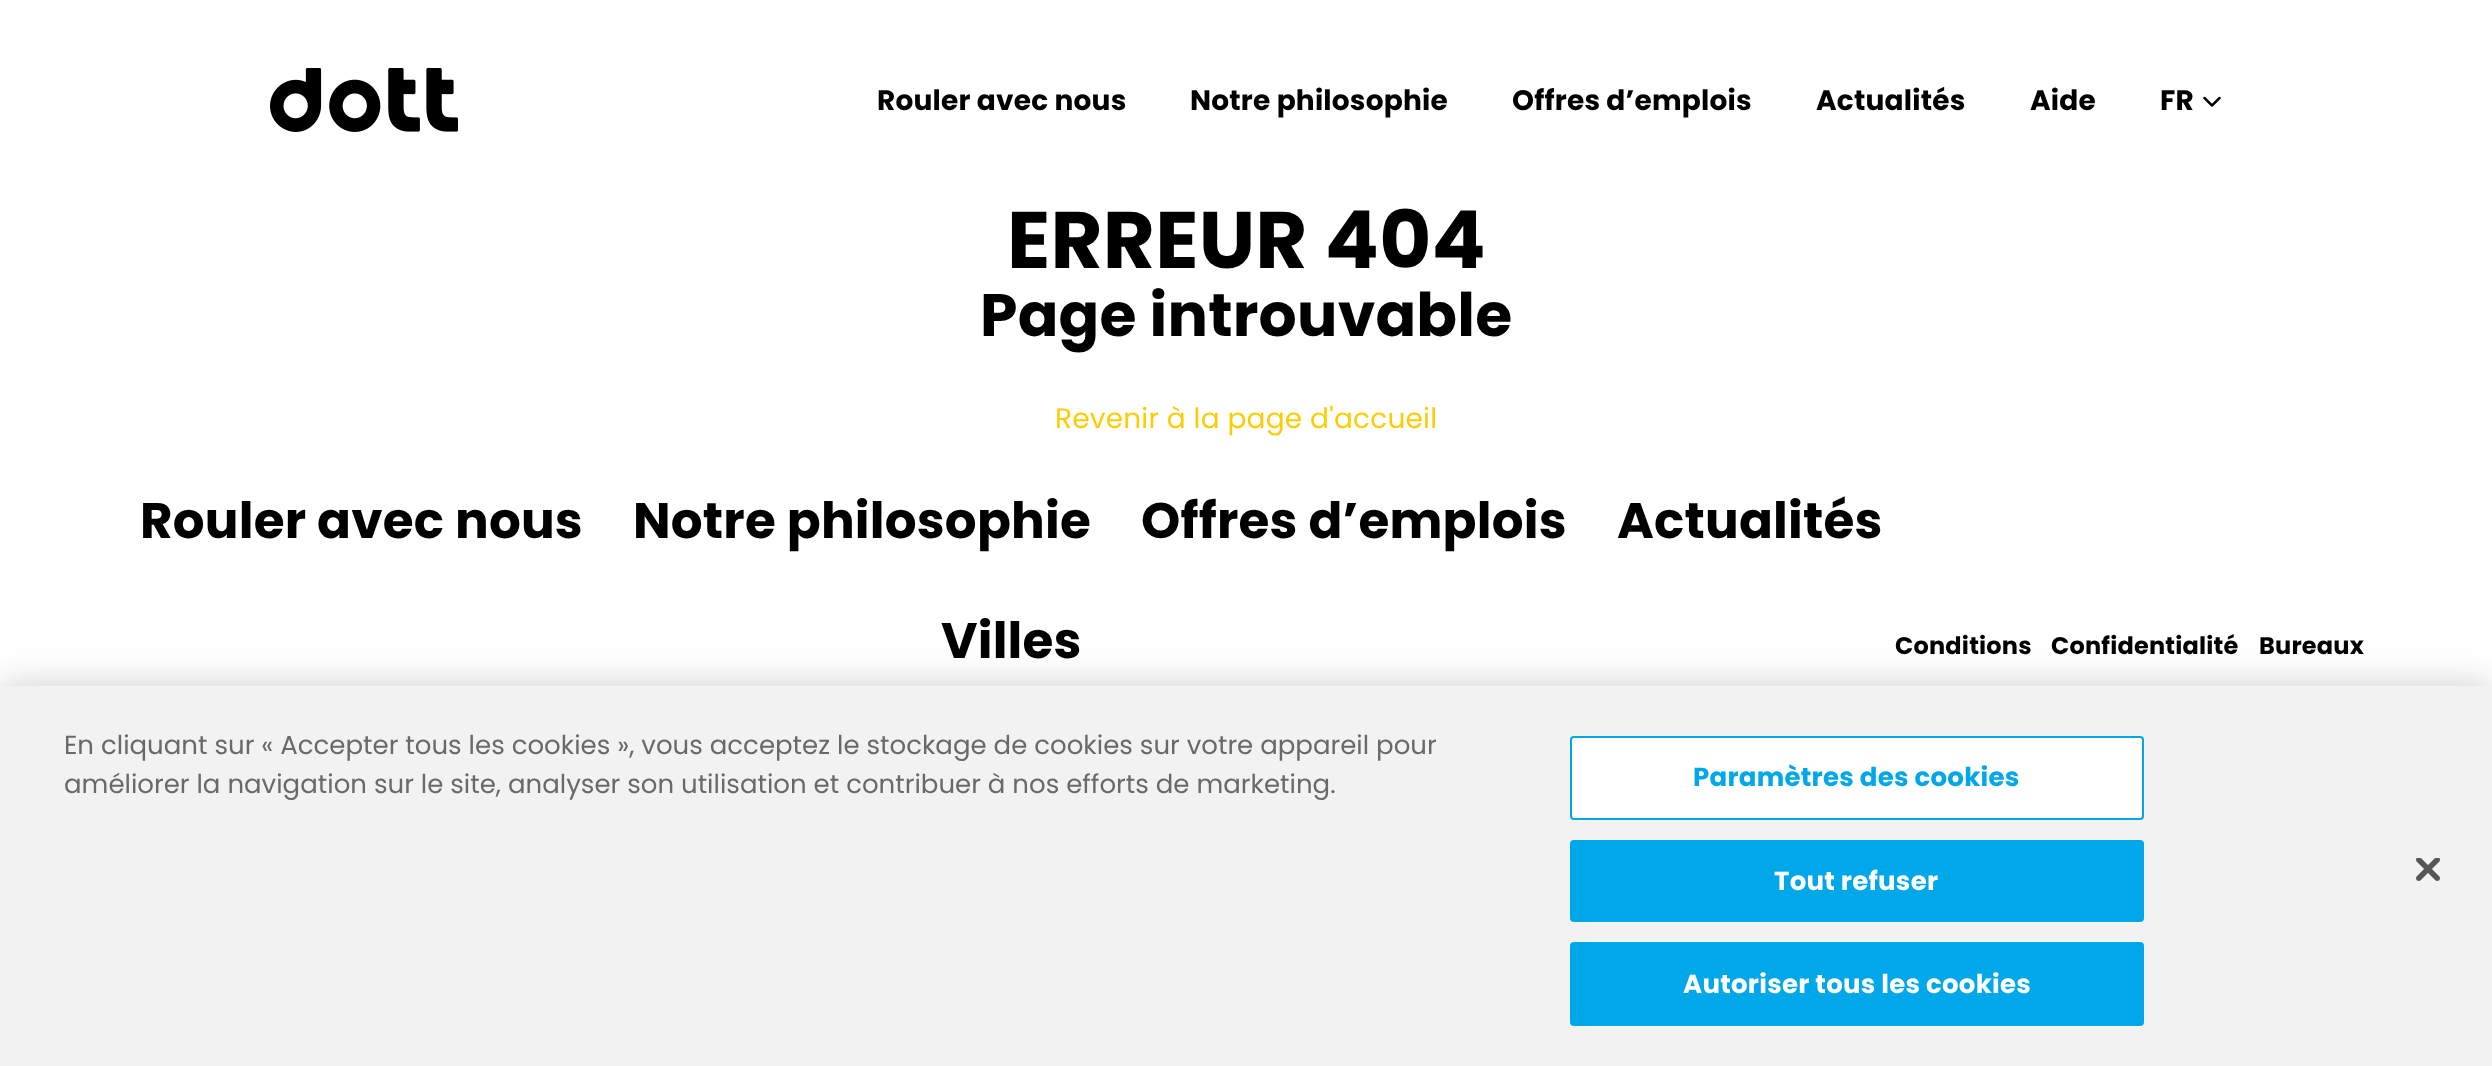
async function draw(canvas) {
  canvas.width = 2492;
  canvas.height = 1066;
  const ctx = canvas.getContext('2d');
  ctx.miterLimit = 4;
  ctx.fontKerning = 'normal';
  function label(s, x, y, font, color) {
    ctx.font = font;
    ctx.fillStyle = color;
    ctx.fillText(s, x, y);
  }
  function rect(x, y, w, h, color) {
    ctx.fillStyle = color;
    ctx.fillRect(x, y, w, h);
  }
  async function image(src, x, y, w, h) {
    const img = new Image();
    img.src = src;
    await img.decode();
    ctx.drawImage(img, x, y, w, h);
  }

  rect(0, 0, 2492, 1066, '#fff');
  await image('assets/img1.png', 270, 68, 188, 64);
  ctx.letterSpacing = '0.2px';
  label('Rouler avec nous', 877, 110, 'bold 28px Poppins', '#000');
  label('Notre philosophie', 1190, 110, 'bold 28px Poppins', '#000');
  label('Offres d’emplois', 1512, 110, 'bold 28px Poppins', '#000');
  label('Actualités', 1816, 110, 'bold 28px Poppins', '#000');
  label('Aide', 2030, 110, 'bold 28px Poppins', '#000');
  label('FR', 2160, 110, 'bold 28px Poppins', '#000');
  await image('assets/img2.png', 2203, 96, 18, 11);
  label('ERREUR 404', 1007, 268, 'bold 80px Poppins', '#000');
  label('Page introuvable', 980, 336, 'bold 60px Poppins', '#000');
  label('Revenir à la page d\'accueil', 1055, 428, '28px Poppins', '#fdcc05');
  label('Rouler avec nous', 140, 538, 'bold 50px Poppins', '#000');
  label('Notre philosophie', 633, 538, 'bold 50px Poppins', '#000');
  label('Offres d’emplois', 1141, 538, 'bold 50px Poppins', '#000');
  label('Actualités', 1617, 538, 'bold 50px Poppins', '#000');
  label('Villes', 941, 658, 'bold 50px Poppins', '#000');
  label('Conditions', 1895, 654, 'bold 24px Poppins', '#000');
  label('Confidentialité', 2051, 654, 'bold 24px Poppins', '#000');
  label('Bureaux', 2259, 654, 'bold 24px Poppins', '#000');
  ctx.fillStyle = '#00000033';
  ctx.filter = 'blur(18px)';
  ctx.beginPath();
  ctx.rect(0, 686, 2492, 380);
  ctx.fill();
  ctx.filter = 'none';
  rect(0, 686, 2492, 380, '#f2f2f2');
  ctx.letterSpacing = '0px';
  label('En cliquant sur « Accepter tous les cookies », vous acceptez le stockage de cookies sur votre appareil pour', 64, 754, '26.02px Poppins', '#696969');
  label('améliorer la navigation sur le site, analyser son utilisation et contribuer à nos efforts de marketing.', 64, 793, '26.02px Poppins', '#696969');
  ctx.fillStyle = '#fff';
  ctx.beginPath();
  ctx.roundRect(1571, 737, 572, 82, 3);
  ctx.fill();
  ctx.strokeStyle = '#00a8e9';
  ctx.lineWidth = 2;
  ctx.stroke();
  ctx.letterSpacing = '0.25px';
  label('Paramètres des cookies', 1693, 786, 'bold 26.02px Poppins', '#00a8e9');
  ctx.beginPath();
  ctx.roundRect(1571, 841, 572, 80, 3);
  ctx.fill();
  ctx.stroke();
  label('Tout refuser', 1774, 890, 'bold 26.02px Poppins', '#fff');
  ctx.fillStyle = '#00a8e9';
  ctx.beginPath();
  ctx.roundRect(1571, 943, 572, 82, 3);
  ctx.fill();
  ctx.stroke();
  label('Autoriser tous les cookies', 1683, 993, 'bold 26.02px Poppins', '#fff');
  await image('assets/img3.png', 2416, 858, 24, 23);
}

draw(document.querySelector('canvas'));
